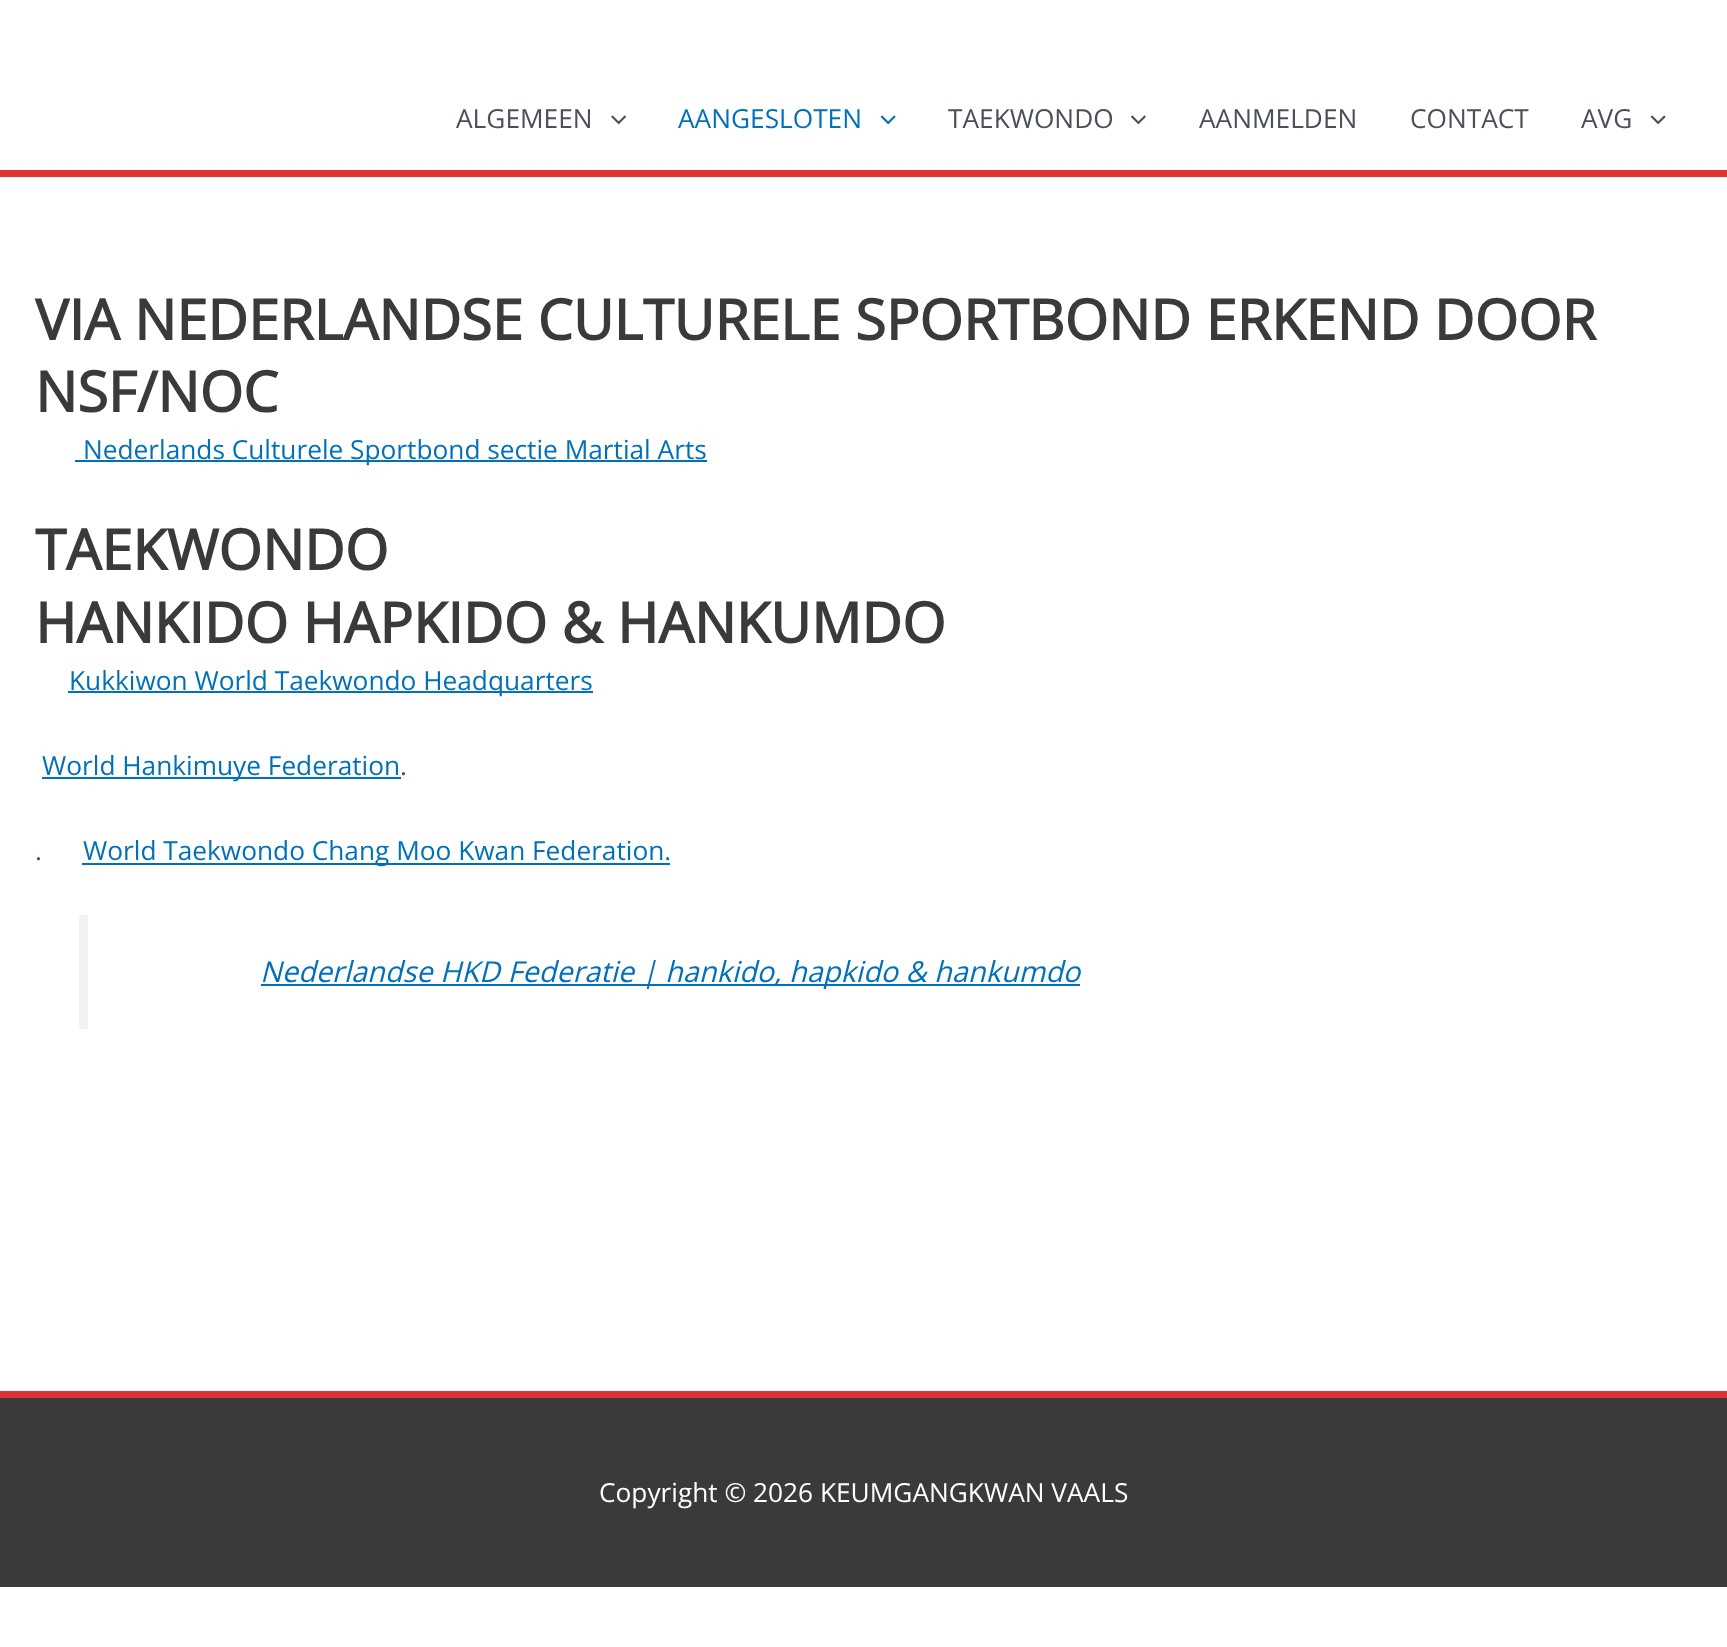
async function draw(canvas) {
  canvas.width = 1727;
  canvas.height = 1647;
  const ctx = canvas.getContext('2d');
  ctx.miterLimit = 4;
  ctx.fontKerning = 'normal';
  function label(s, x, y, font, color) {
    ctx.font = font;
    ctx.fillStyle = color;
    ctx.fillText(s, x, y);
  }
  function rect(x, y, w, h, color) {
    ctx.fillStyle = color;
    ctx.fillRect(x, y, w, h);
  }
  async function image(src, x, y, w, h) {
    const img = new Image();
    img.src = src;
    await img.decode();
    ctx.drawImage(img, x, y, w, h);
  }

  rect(0, 0, 1727, 1647, '#fff');
  rect(0, 170, 1727, 7, '#d33');
  label('ALGEMEEN', 456, 128, '26.25px Open Sans', '#4b4f58');
  await image('assets/img1.png', 611, 115, 16, 10);
  label('AANGESLOTEN', 678, 128, '26.25px Open Sans', '#0170b9');
  await image('assets/img2.png', 880, 115, 16, 10);
  label('TAEKWONDO', 948, 128, '26.25px Open Sans', '#4b4f58');
  await image('assets/img3.png', 1131, 115, 15, 10);
  label('AANMELDEN', 1199, 128, '26.25px Open Sans', '#4b4f58');
  label('CONTACT', 1410, 128, '26.25px Open Sans', '#4b4f58');
  label('AVG', 1581, 128, '26.25px Open Sans', '#4b4f58');
  await image('assets/img4.png', 1650, 115, 16, 10);
  label('VIA NEDERLANDSE CULTURELE SPORTBOND ERKEND DOOR', 35, 340, 'bold 56px Open Sans', '#3a3a3a');
  label('NSF/NOC', 35, 412, 'bold 56px Open Sans', '#3a3a3a');
  rect(75, 460, 632, 2, '#0170b9');
  label('Nederlands Culturele Sportbond sectie Martial Arts', 83, 459, '26.25px Open Sans', '#0170b9');
  label('TAEKWONDO', 35, 570, 'bold 56px Open Sans', '#3a3a3a');
  label('HANKIDO HAPKIDO & HANKUMDO', 35, 643, 'bold 56px Open Sans', '#3a3a3a');
  rect(68, 691, 525, 2, '#0170b9');
  label('Kukkiwon World Taekwondo Headquarters', 69, 690, '26.25px Open Sans', '#0170b9');
  rect(42, 777, 359, 2, '#0170b9');
  label('World Hankimuye Federation', 42, 775, '26.25px Open Sans', '#0170b9');
  label('.', 400, 775, '26.25px Open Sans', '#4b4f58');
  label('.', 35, 860, '26.25px Open Sans', '#4b4f58');
  rect(82, 863, 588, 2, '#0170b9');
  label('World Taekwondo Chang Moo Kwan Federation.', 83, 860, '26.25px Open Sans', '#0170b9');
  rect(79, 915, 9, 114, '#f2f2f2');
  rect(261, 984, 819, 2, '#0170b9');
  label('Nederlandse HKD Federatie | hankido, hapkido & hankumdo', 260, 982, 'italic 28.9px Open Sans', '#0170b9');
  rect(0, 1391, 1727, 7, '#d33');
  rect(0, 1398, 1727, 189, '#3a3a3a');
  label('Copyright © 2026 KEUMGANGKWAN VAALS', 599, 1502, '26.25px Open Sans', '#fff');
}

draw(document.querySelector('canvas'));
